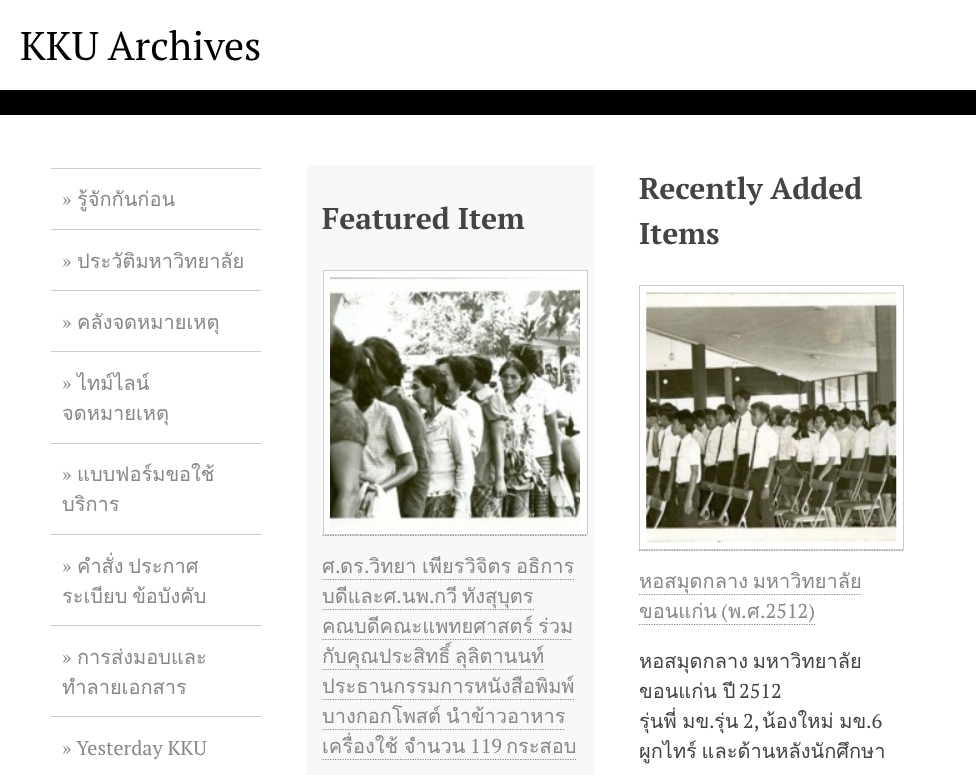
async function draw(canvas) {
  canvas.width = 976;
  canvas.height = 775;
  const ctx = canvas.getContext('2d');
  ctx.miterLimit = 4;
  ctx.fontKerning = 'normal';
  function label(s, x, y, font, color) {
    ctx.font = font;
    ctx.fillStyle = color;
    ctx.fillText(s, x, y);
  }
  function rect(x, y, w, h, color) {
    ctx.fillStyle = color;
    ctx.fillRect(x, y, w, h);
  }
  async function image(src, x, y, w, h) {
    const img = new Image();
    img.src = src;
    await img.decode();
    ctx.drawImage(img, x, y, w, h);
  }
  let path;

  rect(0, 0, 976, 775, '#fff');
  rect(0, 90, 976, 25, '#000');
  label('KKU Archives', 20, 60, '40px PT Serif', '#000');
  rect(51, 168, 210, 1, '#ccc');
  rect(51, 229, 210, 1, '#ccc');
  label('»', 62, 206, '20px PT Serif', '#888');
  label('รู้จักกันก่อน', 77, 206, '20px Loma', '#888');
  rect(51, 290, 210, 1, '#ccc');
  label('»', 62, 268, '20px PT Serif', '#888');
  label('ประวัติมหาวิทยาลัย', 77, 268, '20px Loma', '#888');
  rect(51, 351, 210, 1, '#ccc');
  label('»', 62, 329, '20px PT Serif', '#888');
  label('คลังจดหมายเหตุ', 77, 329, '20px Loma', '#888');
  rect(51, 443, 210, 1, '#ccc');
  label('»', 62, 390, '20px PT Serif', '#888');
  label('ไทม์ไลน์', 77, 390, '20px Loma', '#888');
  label('จดหมายเหตุ', 62, 420, '20px Loma', '#888');
  rect(51, 534, 210, 1, '#ccc');
  label('»', 62, 481, '20px PT Serif', '#888');
  label('แบบฟอร์มขอใช้', 77, 481, '20px Loma', '#888');
  label('บริการ', 62, 511, '20px Loma', '#888');
  rect(51, 625, 210, 1, '#ccc');
  label('»', 62, 573, '20px PT Serif', '#888');
  ctx.wordSpacing = '-2px';
  label('คำสั่ง ประกาศ', 77, 573, '20px Loma', '#888');
  label('ระเบียบ ข้อบังคับ', 62, 603, '20px Loma', '#888');
  rect(51, 716, 210, 1, '#ccc');
  ctx.wordSpacing = '0px';
  label('»', 62, 664, '20px PT Serif', '#888');
  label('การส่งมอบและ', 77, 664, '20px Loma', '#888');
  label('ทำลายเอกสาร', 62, 694, '20px Loma', '#888');
  label('» Yesterday KKU', 62, 755, '20px PT Serif', '#888');
  rect(306, 165, 288, 610, '#f8f8f8');
  label('Featured Item', 322, 229, 'bold 30px PT Serif', '#444');
  ctx.fillStyle = '#fff';
  ctx.beginPath();
  ctx.rect(323.5, 270.5, 264, 264);
  ctx.fill();
  ctx.strokeStyle = '#ccc';
  ctx.stroke();
  path = new Path2D('M322.5 535.5H587.5');
  ctx.strokeStyle = '#888';
  ctx.lineWidth = 1.2;
  ctx.setLineDash([1.25, 1.25]);
  ctx.stroke(path);
  path = new Path2D('M322.5 579.5H574');
  ctx.stroke(path);
  path = new Path2D('M322.5 609.5H534');
  ctx.stroke(path);
  path = new Path2D('M322.5 639.5H572.5');
  ctx.stroke(path);
  path = new Path2D('M322.5 669.5H545');
  ctx.stroke(path);
  path = new Path2D('M322.5 699.5H575');
  ctx.stroke(path);
  path = new Path2D('M322.5 729.5H565');
  ctx.stroke(path);
  path = new Path2D('M322.5 759.5H576');
  ctx.stroke(path);
  await image('assets/img1.png', 330, 277, 250, 251);
  label('ศ', 322, 573, '20px Loma', '#888');
  label('.', 335, 573, '20px PT Serif', '#888');
  label('ดร', 340, 573, '20px Loma', '#888');
  label('.', 364, 573, '20px PT Serif', '#888');
  label('วิทยา', 369, 573, '20px Loma', '#888');
  label('เพียรวิจิตร', 422, 573, '20px Loma', '#888');
  label('อธิการ', 516, 573, '20px Loma', '#888');
  label('บดีและศ', 322, 603, '20px Loma', '#888');
  label('.', 396, 603, '20px PT Serif', '#888');
  label('นพ', 402, 603, '20px Loma', '#888');
  label('.', 429, 603, '20px PT Serif', '#888');
  label('กวี', 434, 603, '20px Loma', '#888');
  label('ทังสุบุตร', 462, 603, '20px Loma', '#888');
  label('คณบดีคณะแพทยศาสตร์', 322, 633, '20px Loma', '#888');
  label('ร่วม', 538, 633, '20px Loma', '#888');
  label('กับคุณประสิทธิ์', 322, 663, '20px Loma', '#888');
  label('ลุลิตานนท์', 455, 663, '20px Loma', '#888');
  label('ประธานกรรมการหนังสือพิมพ์', 322, 693, '20px Loma', '#888');
  label('บางกอกโพสต์', 322, 723, '20px Loma', '#888');
  label('นำข้าวอาหาร', 446, 723, '20px Loma', '#888');
  ctx.wordSpacing = '-1px';
  label('เครื่องใช้ จำนวน', 322, 753, '20px Loma', '#888');
  ctx.wordSpacing = '0px';
  label('119', 470, 753, '20px PT Serif', '#888');
  label('กระสอบ', 506, 753, '20px Loma', '#888');
  label('Recently Added', 639, 199, 'bold 30px PT Serif', '#444');
  label('Items', 639, 244, 'bold 30px PT Serif', '#444');
  ctx.strokeStyle = '#ccc';
  ctx.lineWidth = 1;
  ctx.setLineDash([]);
  ctx.strokeRect(639.5, 285.5, 264, 264);
  path = new Path2D('M639 550.5H904');
  ctx.strokeStyle = '#888';
  ctx.lineWidth = 1.2;
  ctx.setLineDash([1.25, 1.25]);
  ctx.stroke(path);
  path = new Path2D('M639 594.5H861');
  ctx.stroke(path);
  path = new Path2D('M639 624.5H815');
  ctx.stroke(path);
  await image('assets/img2.png', 646, 292, 251, 251);
  ctx.wordSpacing = '-2px';
  label('หอสมุดกลาง มหาวิทยาลัย', 639, 588, '20px Loma', '#888');
  ctx.wordSpacing = '0px';
  label('ขอนแก่น', 639, 618, '20px Loma', '#888');
  label('(', 721, 618, '20px PT Serif', '#888');
  label('พ', 728, 618, '20px Loma', '#888');
  label('.', 741, 618, '20px PT Serif', '#888');
  label('ศ', 747, 618, '20px Loma', '#888');
  label('.2512)', 760, 618, '20px PT Serif', '#888');
  ctx.wordSpacing = '-2px';
  label('หอสมุดกลาง มหาวิทยาลัย', 639, 668, '20px Loma', '#444');
  ctx.wordSpacing = '-1px';
  label('ขอนแก่น ปี', 639, 698, '20px Loma', '#444');
  ctx.wordSpacing = '0px';
  label('2512', 739, 698, '20px PT Serif', '#444');
  ctx.wordSpacing = '-1px';
  label('รุ่นพี่ มข', 639, 728, '20px Loma', '#444');
  ctx.wordSpacing = '0px';
  label('.', 709, 728, '20px PT Serif', '#444');
  label('รุ่น', 714, 728, '20px Loma', '#444');
  label('2,', 743, 728, '20px PT Serif', '#444');
  ctx.wordSpacing = '-1px';
  label('น้องใหม่ มข', 762, 728, '20px Loma', '#444');
  ctx.wordSpacing = '0px';
  label('.6', 866, 728, '20px PT Serif', '#444');
  ctx.wordSpacing = '-2px';
  label('ผูกไทร์ และด้านหลังนักศึกษา', 639, 758, '20px Loma', '#444');
}

draw(document.querySelector('canvas'));
